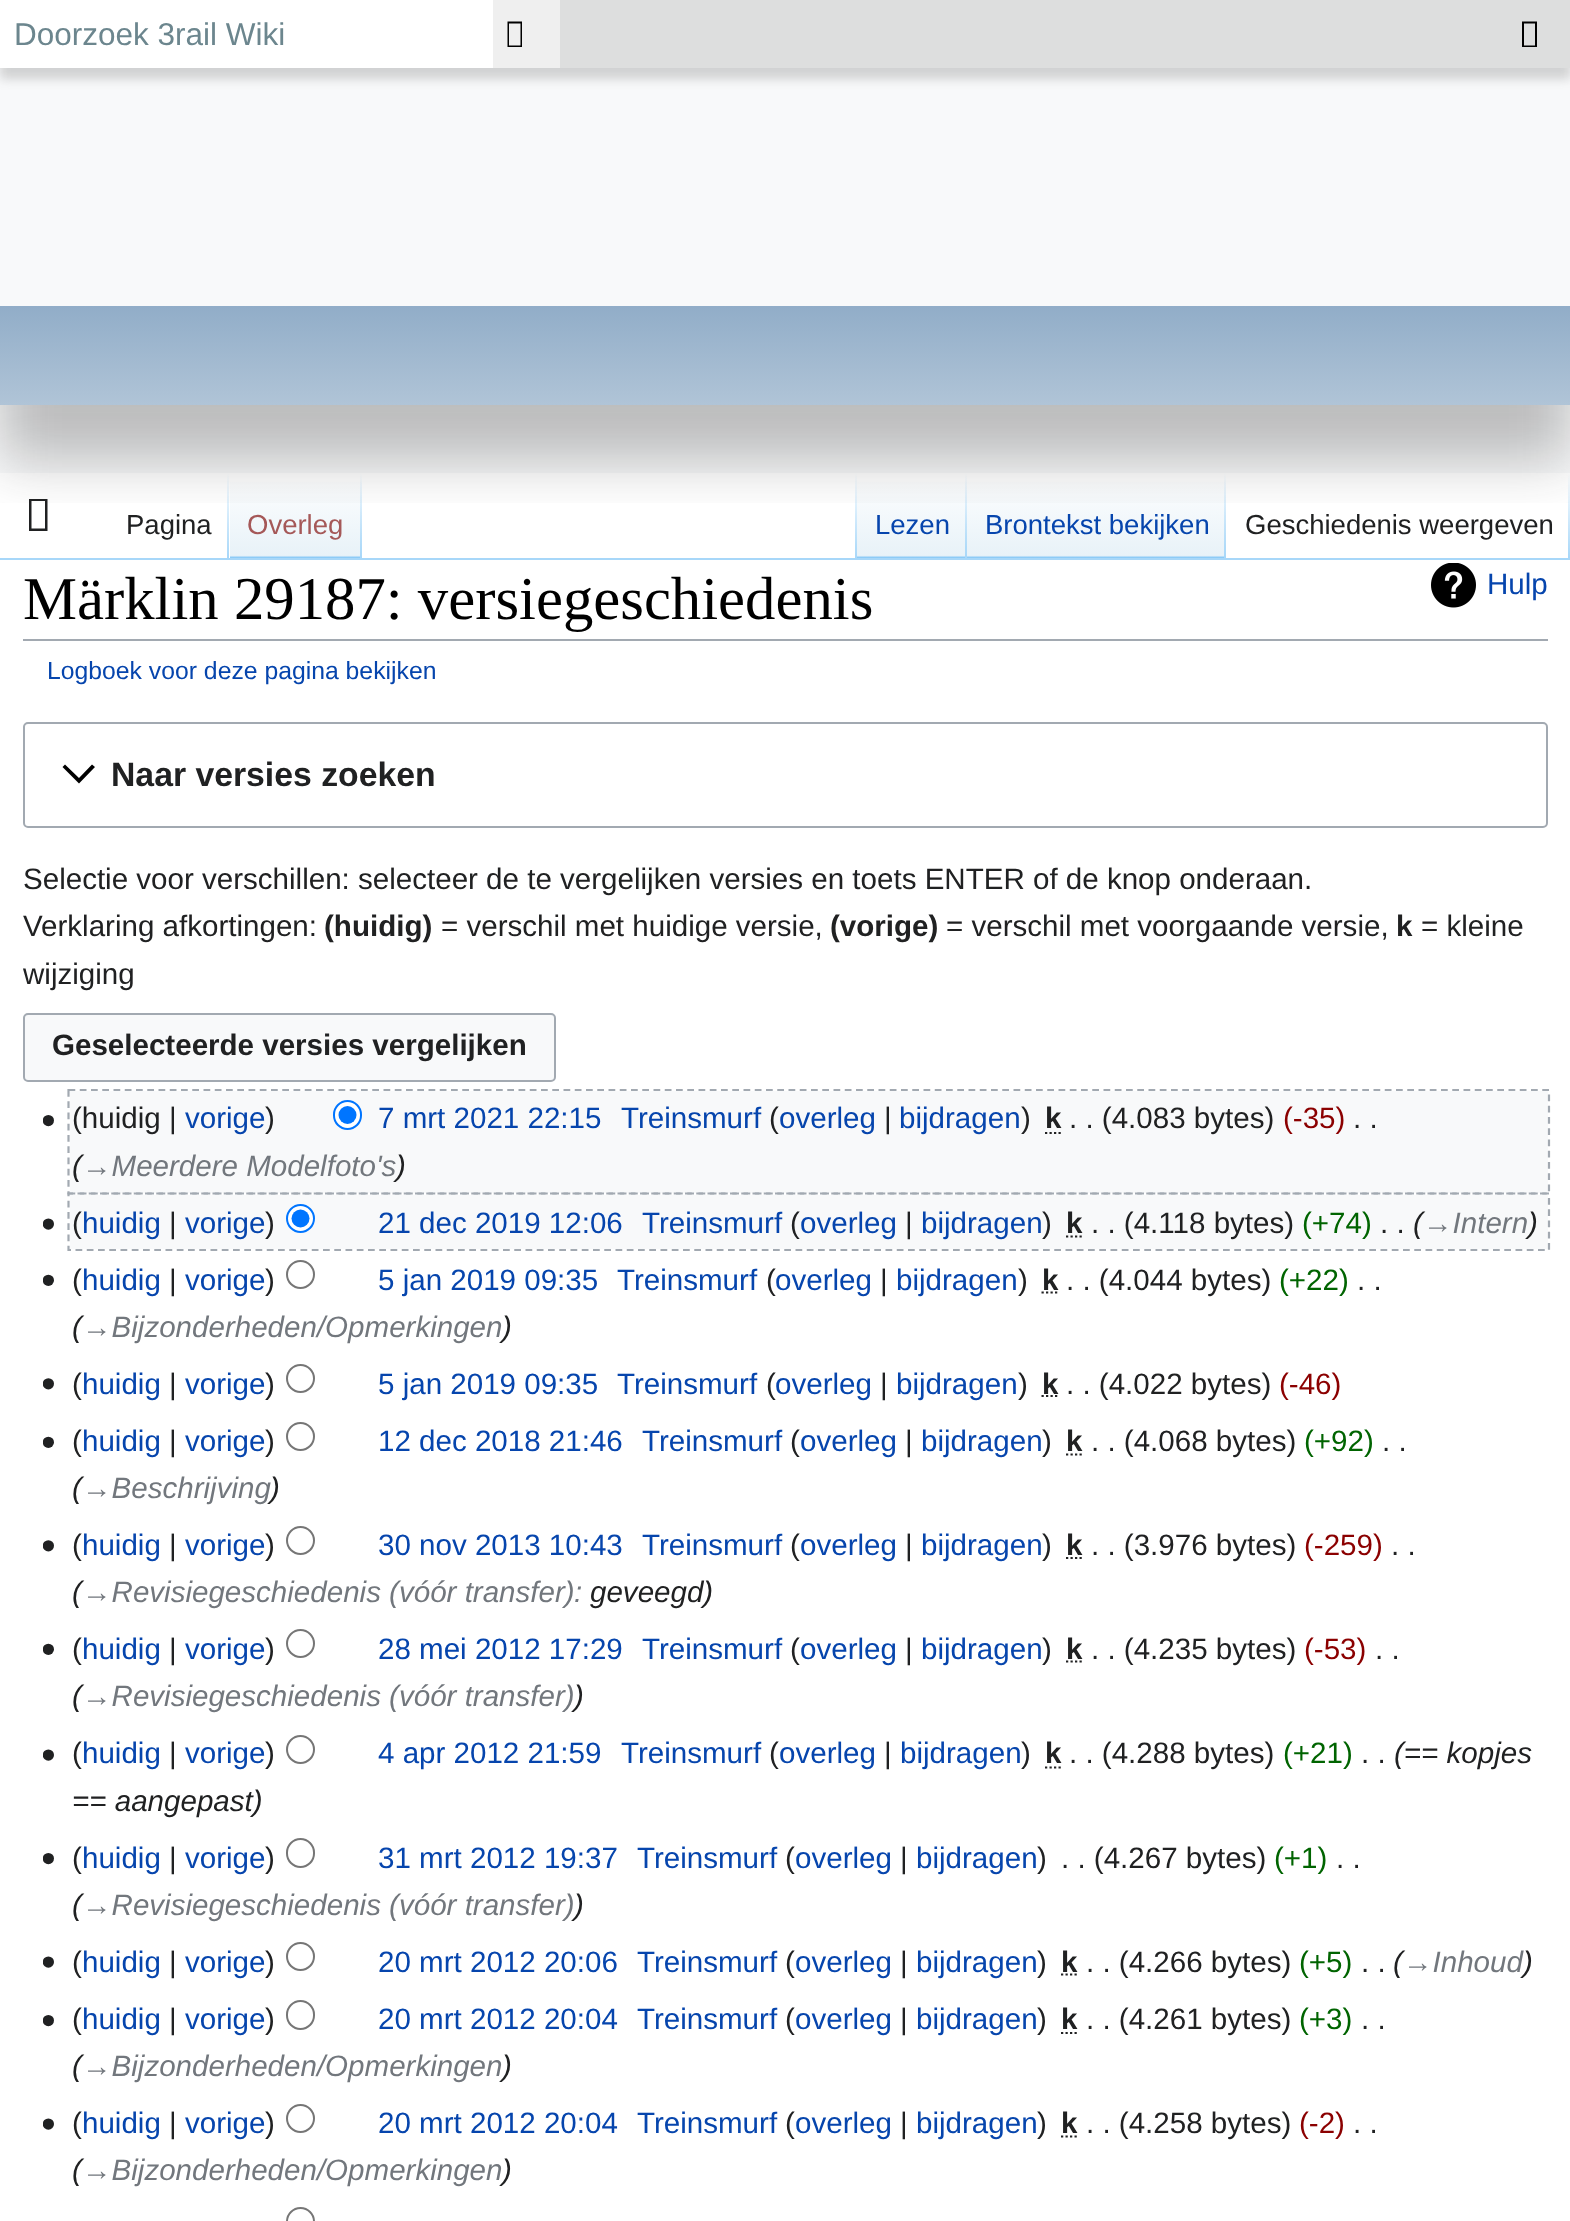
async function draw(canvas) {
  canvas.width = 1570;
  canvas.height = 2221;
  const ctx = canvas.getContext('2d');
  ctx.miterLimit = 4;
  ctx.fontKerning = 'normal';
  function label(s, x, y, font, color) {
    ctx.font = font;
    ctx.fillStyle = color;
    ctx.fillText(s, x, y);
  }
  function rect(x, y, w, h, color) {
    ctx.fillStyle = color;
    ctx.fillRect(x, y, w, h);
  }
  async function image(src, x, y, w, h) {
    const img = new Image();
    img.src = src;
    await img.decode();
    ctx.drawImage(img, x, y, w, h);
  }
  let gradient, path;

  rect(0, 0, 1570, 2221, '#f8f9fa');
  rect(0, 473, 1570, 1748, '#fff');
  ctx.fillStyle = '#202122';
  path = new Path2D('M29 531V499H47.5V531ZM31.5 528.5H45V501H31.5Z');
  ctx.fill(path);
  gradient = ctx.createLinearGradient(228, 473, 228, 558);
  gradient.addColorStop(0, '#fff');
  gradient.addColorStop(1, '#a7d7f9');
  ctx.fillStyle = gradient;
  ctx.fillRect(227, 473, 2, 85);
  gradient = ctx.createLinearGradient(296, 558, 296, 473);
  gradient.addColorStop(0, '#77c1f6');
  gradient.addColorStop(0.03, '#e8f2f8');
  gradient.addColorStop(1, '#fff');
  ctx.fillStyle = gradient;
  ctx.fillRect(230, 482, 132, 76);
  gradient = ctx.createLinearGradient(361, 473, 361, 558);
  gradient.addColorStop(0, '#a7d7f900');
  gradient.addColorStop(1, '#a7d7f9');
  ctx.fillStyle = gradient;
  ctx.fillRect(360, 473, 2, 85);
  gradient = ctx.createLinearGradient(856, 473, 856, 558);
  gradient.addColorStop(0, '#fff');
  gradient.addColorStop(1, '#a7d7f9');
  ctx.fillStyle = gradient;
  ctx.fillRect(855, 473, 2, 85);
  gradient = ctx.createLinearGradient(912, 558, 912, 473);
  gradient.addColorStop(0, '#77c1f6');
  gradient.addColorStop(0.03, '#e8f2f8');
  gradient.addColorStop(1, '#fff');
  ctx.fillStyle = gradient;
  ctx.fillRect(857, 482, 111, 76);
  gradient = ctx.createLinearGradient(966, 473, 966, 558);
  gradient.addColorStop(0, '#a7d7f900');
  gradient.addColorStop(1, '#a7d7f9');
  ctx.fillStyle = gradient;
  ctx.fillRect(965, 473, 2, 85);
  gradient = ctx.createLinearGradient(1097, 558, 1097, 473);
  gradient.addColorStop(0, '#77c1f6');
  gradient.addColorStop(0.03, '#e8f2f8');
  gradient.addColorStop(1, '#fff');
  ctx.fillStyle = gradient;
  ctx.fillRect(968, 482, 258, 76);
  gradient = ctx.createLinearGradient(1225, 473, 1225, 558);
  gradient.addColorStop(0, '#a7d7f900');
  gradient.addColorStop(1, '#a7d7f9');
  ctx.fillStyle = gradient;
  ctx.fillRect(1224, 473, 2, 85);
  gradient = ctx.createLinearGradient(1569, 473, 1569, 558);
  gradient.addColorStop(0, '#fff');
  gradient.addColorStop(1, '#a7d7f9');
  ctx.fillStyle = gradient;
  ctx.fillRect(1568, 473, 2, 85);
  ctx.save();
  ctx.beginPath();
  ctx.rect(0, 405, 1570, 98);
  ctx.clip();
  ctx.fillStyle = '#3232324d';
  ctx.filter = 'blur(28px)';
  ctx.beginPath();
  ctx.rect(0, 56, 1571, 405);
  ctx.fill();
  ctx.filter = 'none';
  ctx.restore();
  ctx.save();
  path = new Path2D('M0 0H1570V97H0ZM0 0H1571V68H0Z');
  ctx.clip(path, 'evenodd');
  ctx.fillStyle = '#32323233';
  ctx.filter = 'blur(5.5px)';
  ctx.beginPath();
  ctx.rect(0, 11, 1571, 68);
  ctx.fill();
  ctx.filter = 'none';
  ctx.restore();
  rect(560, 0, 1010, 68, '#cccccc99');
  rect(0, 0, 493, 68, '#fff');
  label('Doorzoek 3rail Wiki', 14, 45, '31.5px Liberation Sans', '#6c868e');
  rect(493, 0, 67, 68, '#efefef');
  ctx.fillStyle = '#000';
  path = new Path2D('M507.5 47V21.5H522V47ZM509 45.5H520.5V23.5H509Z');
  ctx.fill(path);
  path = new Path2D('M1522 47V21.5H1537V47ZM1524 45.5H1535V23.5H1524Z');
  ctx.fill(path);
  gradient = ctx.createLinearGradient(785, 306, 785, 405);
  gradient.addColorStop(0, '#91adc8');
  gradient.addColorStop(1, '#b0c4d7');
  ctx.fillStyle = gradient;
  ctx.fillRect(0, 306, 1570, 99);
  rect(0, 558, 1570, 2, '#a7d7f9');
  label('Pagina', 126, 534, '27.5px Liberation Sans', '#202122');
  label('Overleg', 247, 534, '27.5px Liberation Sans', '#a55858');
  label('Lezen', 875, 534, '27.5px Liberation Sans', '#0645ad');
  label('Brontekst bekijken', 985, 534, '27.5px Liberation Sans', '#0645ad');
  label('Geschiedenis weergeven', 1245, 534, '27.5px Liberation Sans', '#202122');
  rect(23, 639, 1525, 2, '#a2a9b1');
  label('Märklin 29187: versiegeschiedenis', 23, 619, '60.75px Liberation Serif', '#000');
  await image('assets/img1.png', 1431, 563, 45, 45);
  label('Hulp', 1487, 594, '29.55px Liberation Sans', '#0645ad');
  label('Logboek voor deze pagina bekijken', 47, 679, '24.75px Liberation Sans', '#0645ad');
  ctx.beginPath();
  ctx.roundRect(24, 723, 1523, 104, 4);
  ctx.strokeStyle = '#a2a9b1';
  ctx.lineWidth = 2;
  ctx.stroke();
  ctx.fillStyle = '#000';
  path = new Path2D('M92 764.5L79 778L65 764.5L62.5 767L79 783.5L95 767Z');
  ctx.fill(path);
  label('Naar versies zoeken', 111, 786, 'bold 33.75px Liberation Sans', '#202122');
  label('Selectie voor verschillen: selecteer de te vergelijken versies en toets ENTER of de knop onderaan.', 23, 889, '29.55px Liberation Sans', '#202122');
  label('Verklaring afkortingen:', 23, 936, '29.55px Liberation Sans', '#202122');
  label('(huidig)', 324, 936, 'bold 29.55px Liberation Sans', '#202122');
  label('= verschil met huidige versie,', 441, 936, '29.55px Liberation Sans', '#202122');
  label('(vorige)', 830, 936, 'bold 29.55px Liberation Sans', '#202122');
  label('= verschil met voorgaande versie,', 946, 936, '29.55px Liberation Sans', '#202122');
  label('k', 1396, 936, 'bold 29.55px Liberation Sans', '#202122');
  label('= kleine', 1421, 936, '29.55px Liberation Sans', '#202122');
  label('wijziging', 23, 984, '29.55px Liberation Sans', '#202122');
  ctx.fillStyle = '#f8f9fa';
  ctx.beginPath();
  ctx.roundRect(24, 1014, 531, 67, 4);
  ctx.fill();
  ctx.stroke();
  label('Geselecteerde versies vergelijken', 52, 1055, 'bold 29.55px Liberation Sans', '#202122');
  rect(70, 1091, 1478, 102, '#f8f9fa');
  await image('assets/img2.png', 43, 1115, 11, 12);
  label('(huidig |', 72, 1128, '29.55px Liberation Sans', '#202122');
  label('vorige', 185, 1128, '29.55px Liberation Sans', '#0645ad');
  label(')', 265, 1128, '29.55px Liberation Sans', '#202122');
  ctx.fillStyle = '#fff';
  ctx.beginPath();
  ctx.roundRect(334, 1101, 27, 28, 13.5);
  ctx.fill();
  ctx.strokeStyle = '#0075ff';
  ctx.stroke();
  ctx.fillStyle = '#0075ff';
  ctx.beginPath();
  ctx.arc(347.5, 1115, 9, 0, 2 * Math.PI);
  ctx.fill();
  label('7 mrt 2021 22:15', 378, 1128, '29.55px Liberation Sans', '#0645ad');
  label('Treinsmurf', 621, 1128, '29.55px Liberation Sans', '#0645ad');
  label('(', 769, 1128, '29.55px Liberation Sans', '#202122');
  label('overleg', 779, 1128, '29.55px Liberation Sans', '#0645ad');
  label('|', 884, 1128, '29.55px Liberation Sans', '#202122');
  label('bijdragen', 899, 1128, '29.55px Liberation Sans', '#0645ad');
  label(')', 1021, 1128, '29.55px Liberation Sans', '#202122');
  label('k', 1045, 1128, 'bold 29.55px Liberation Sans', '#202122');
  path = new Path2D('M1045 1133H1061');
  ctx.strokeStyle = '#202122';
  ctx.lineWidth = 2.2;
  ctx.setLineDash([2.25, 2.25]);
  ctx.stroke(path);
  label('. . (4.083 bytes)', 1069, 1128, '29.55px Liberation Sans', '#202122');
  label('(-35)', 1283, 1128, '29.55px Liberation Sans', '#8b0000');
  label('. .', 1353, 1128, '29.55px Liberation Sans', '#202122');
  label('(', 72, 1176, 'italic 29.55px Liberation Sans', '#202122');
  label('→Meerdere Modelfoto\'s', 82, 1176, 'italic 29.55px Liberation Sans', '#72777d');
  label(')', 396, 1176, 'italic 29.55px Liberation Sans', '#202122');
  path = new Path2D('M68.5 1090H1549V1193.5H68.5Z');
  ctx.strokeStyle = '#a2a9b1';
  ctx.setLineDash([6.75, 4.5]);
  ctx.stroke(path);
  rect(70, 1195, 1478, 54, '#f8f9fa');
  await image('assets/img3.png', 43, 1218, 11, 12);
  label('(', 72, 1233, '29.55px Liberation Sans', '#202122');
  label('huidig', 82, 1233, '29.55px Liberation Sans', '#0645ad');
  label('|', 169, 1233, '29.55px Liberation Sans', '#202122');
  label('vorige', 185, 1233, '29.55px Liberation Sans', '#0645ad');
  label(')', 265, 1233, '29.55px Liberation Sans', '#202122');
  ctx.fillStyle = '#fff';
  ctx.beginPath();
  ctx.arc(300.5, 1218.5, 13.5, 0, 2 * Math.PI);
  ctx.fill();
  ctx.strokeStyle = '#0075ff';
  ctx.lineWidth = 2;
  ctx.setLineDash([]);
  ctx.stroke();
  ctx.fillStyle = '#0075ff';
  ctx.beginPath();
  ctx.arc(300.5, 1218.5, 9, 0, 2 * Math.PI);
  ctx.fill();
  label('21 dec 2019 12:06', 378, 1233, '29.55px Liberation Sans', '#0645ad');
  label('Treinsmurf', 642, 1233, '29.55px Liberation Sans', '#0645ad');
  label('(', 790, 1233, '29.55px Liberation Sans', '#202122');
  label('overleg', 800, 1233, '29.55px Liberation Sans', '#0645ad');
  label('|', 905, 1233, '29.55px Liberation Sans', '#202122');
  label('bijdragen', 921, 1233, '29.55px Liberation Sans', '#0645ad');
  label(')', 1042, 1233, '29.55px Liberation Sans', '#202122');
  label('k', 1066, 1233, 'bold 29.55px Liberation Sans', '#202122');
  path = new Path2D('M1066 1236.5H1082.5');
  ctx.strokeStyle = '#202122';
  ctx.lineWidth = 2.2;
  ctx.setLineDash([2.25, 2.25]);
  ctx.stroke(path);
  label('. . (4.118 bytes)', 1091, 1233, '29.55px Liberation Sans', '#202122');
  label('(+74)', 1302, 1233, '29.55px Liberation Sans', '#006400');
  label('. .', 1380, 1233, '29.55px Liberation Sans', '#202122');
  label('(', 1413, 1233, 'italic 29.55px Liberation Sans', '#202122');
  label('→Intern', 1423, 1233, 'italic 29.55px Liberation Sans', '#72777d');
  label(')', 1528, 1233, 'italic 29.55px Liberation Sans', '#202122');
  path = new Path2D('M68.5 1193.5H1549V1250H68.5Z');
  ctx.strokeStyle = '#a2a9b1';
  ctx.setLineDash([6.75, 4.5]);
  ctx.stroke(path);
  await image('assets/img4.png', 43, 1274, 11, 12);
  label('(', 72, 1290, '29.55px Liberation Sans', '#202122');
  label('huidig', 82, 1290, '29.55px Liberation Sans', '#0645ad');
  label('|', 169, 1290, '29.55px Liberation Sans', '#202122');
  label('vorige', 185, 1290, '29.55px Liberation Sans', '#0645ad');
  label(')', 265, 1290, '29.55px Liberation Sans', '#202122');
  ctx.beginPath();
  ctx.arc(300.5, 1274.5, 13.5, 0, 2 * Math.PI);
  ctx.strokeStyle = '#767676';
  ctx.lineWidth = 2;
  ctx.setLineDash([]);
  ctx.stroke();
  label('5 jan 2019 09:35', 378, 1290, '29.55px Liberation Sans', '#0645ad');
  label('Treinsmurf', 617, 1290, '29.55px Liberation Sans', '#0645ad');
  label('(', 766, 1290, '29.55px Liberation Sans', '#202122');
  label('overleg', 775, 1290, '29.55px Liberation Sans', '#0645ad');
  label('|', 880, 1290, '29.55px Liberation Sans', '#202122');
  label('bijdragen', 896, 1290, '29.55px Liberation Sans', '#0645ad');
  label(')', 1018, 1290, '29.55px Liberation Sans', '#202122');
  label('k', 1042, 1290, 'bold 29.55px Liberation Sans', '#202122');
  path = new Path2D('M1041.5 1292.5H1058');
  ctx.strokeStyle = '#202122';
  ctx.lineWidth = 2.2;
  ctx.setLineDash([2.25, 2.25]);
  ctx.stroke(path);
  label('. . (4.044 bytes)', 1066, 1290, '29.55px Liberation Sans', '#202122');
  label('(+22)', 1279, 1290, '29.55px Liberation Sans', '#006400');
  label('. .', 1357, 1290, '29.55px Liberation Sans', '#202122');
  label('(', 72, 1337, 'italic 29.55px Liberation Sans', '#202122');
  label('→Bijzonderheden/Opmerkingen', 82, 1337, 'italic 29.55px Liberation Sans', '#72777d');
  label(')', 502, 1337, 'italic 29.55px Liberation Sans', '#202122');
  await image('assets/img5.png', 43, 1378, 11, 12);
  label('(', 72, 1394, '29.55px Liberation Sans', '#202122');
  label('huidig', 82, 1394, '29.55px Liberation Sans', '#0645ad');
  label('|', 169, 1394, '29.55px Liberation Sans', '#202122');
  label('vorige', 185, 1394, '29.55px Liberation Sans', '#0645ad');
  label(')', 265, 1394, '29.55px Liberation Sans', '#202122');
  ctx.beginPath();
  ctx.arc(300.5, 1378.5, 13.5, 0, 2 * Math.PI);
  ctx.strokeStyle = '#767676';
  ctx.lineWidth = 2;
  ctx.setLineDash([]);
  ctx.stroke();
  label('5 jan 2019 09:35', 378, 1394, '29.55px Liberation Sans', '#0645ad');
  label('Treinsmurf', 617, 1394, '29.55px Liberation Sans', '#0645ad');
  label('(', 766, 1394, '29.55px Liberation Sans', '#202122');
  label('overleg', 775, 1394, '29.55px Liberation Sans', '#0645ad');
  label('|', 880, 1394, '29.55px Liberation Sans', '#202122');
  label('bijdragen', 896, 1394, '29.55px Liberation Sans', '#0645ad');
  label(')', 1018, 1394, '29.55px Liberation Sans', '#202122');
  label('k', 1042, 1394, 'bold 29.55px Liberation Sans', '#202122');
  path = new Path2D('M1041.5 1396H1058');
  ctx.strokeStyle = '#202122';
  ctx.lineWidth = 2.2;
  ctx.setLineDash([2.25, 2.25]);
  ctx.stroke(path);
  label('. . (4.022 bytes)', 1066, 1394, '29.55px Liberation Sans', '#202122');
  label('(-46)', 1279, 1394, '29.55px Liberation Sans', '#8b0000');
  await image('assets/img6.png', 43, 1436, 11, 12);
  label('(', 72, 1451, '29.55px Liberation Sans', '#202122');
  label('huidig', 82, 1451, '29.55px Liberation Sans', '#0645ad');
  label('|', 169, 1451, '29.55px Liberation Sans', '#202122');
  label('vorige', 185, 1451, '29.55px Liberation Sans', '#0645ad');
  label(')', 265, 1451, '29.55px Liberation Sans', '#202122');
  ctx.beginPath();
  ctx.arc(300.5, 1436.5, 13.5, 0, 2 * Math.PI);
  ctx.strokeStyle = '#767676';
  ctx.lineWidth = 2;
  ctx.setLineDash([]);
  ctx.stroke();
  label('12 dec 2018 21:46', 378, 1451, '29.55px Liberation Sans', '#0645ad');
  label('Treinsmurf', 642, 1451, '29.55px Liberation Sans', '#0645ad');
  label('(', 790, 1451, '29.55px Liberation Sans', '#202122');
  label('overleg', 800, 1451, '29.55px Liberation Sans', '#0645ad');
  label('|', 905, 1451, '29.55px Liberation Sans', '#202122');
  label('bijdragen', 921, 1451, '29.55px Liberation Sans', '#0645ad');
  label(')', 1042, 1451, '29.55px Liberation Sans', '#202122');
  label('k', 1066, 1451, 'bold 29.55px Liberation Sans', '#202122');
  path = new Path2D('M1066 1454.5H1082.5');
  ctx.strokeStyle = '#202122';
  ctx.lineWidth = 2.2;
  ctx.setLineDash([2.25, 2.25]);
  ctx.stroke(path);
  label('. . (4.068 bytes)', 1091, 1451, '29.55px Liberation Sans', '#202122');
  label('(+92)', 1304, 1451, '29.55px Liberation Sans', '#006400');
  label('. .', 1382, 1451, '29.55px Liberation Sans', '#202122');
  label('(', 72, 1498, 'italic 29.55px Liberation Sans', '#202122');
  label('→Beschrijving', 82, 1498, 'italic 29.55px Liberation Sans', '#72777d');
  label(')', 270, 1498, 'italic 29.55px Liberation Sans', '#202122');
  await image('assets/img5.png', 43, 1540, 11, 12);
  label('(', 72, 1555, '29.55px Liberation Sans', '#202122');
  label('huidig', 82, 1555, '29.55px Liberation Sans', '#0645ad');
  label('|', 169, 1555, '29.55px Liberation Sans', '#202122');
  label('vorige', 185, 1555, '29.55px Liberation Sans', '#0645ad');
  label(')', 265, 1555, '29.55px Liberation Sans', '#202122');
  ctx.beginPath();
  ctx.arc(300.5, 1540.5, 13.5, 0, 2 * Math.PI);
  ctx.strokeStyle = '#767676';
  ctx.lineWidth = 2;
  ctx.setLineDash([]);
  ctx.stroke();
  label('30 nov 2013 10:43', 378, 1555, '29.55px Liberation Sans', '#0645ad');
  label('Treinsmurf', 642, 1555, '29.55px Liberation Sans', '#0645ad');
  label('(', 790, 1555, '29.55px Liberation Sans', '#202122');
  label('overleg', 800, 1555, '29.55px Liberation Sans', '#0645ad');
  label('|', 905, 1555, '29.55px Liberation Sans', '#202122');
  label('bijdragen', 921, 1555, '29.55px Liberation Sans', '#0645ad');
  label(')', 1042, 1555, '29.55px Liberation Sans', '#202122');
  label('k', 1066, 1555, 'bold 29.55px Liberation Sans', '#202122');
  path = new Path2D('M1066 1558H1082.5');
  ctx.strokeStyle = '#202122';
  ctx.lineWidth = 2.2;
  ctx.setLineDash([2.25, 2.25]);
  ctx.stroke(path);
  label('. . (3.976 bytes)', 1091, 1555, '29.55px Liberation Sans', '#202122');
  label('(-259)', 1304, 1555, '29.55px Liberation Sans', '#8b0000');
  label('. .', 1391, 1555, '29.55px Liberation Sans', '#202122');
  label('(', 72, 1602, 'italic 29.55px Liberation Sans', '#202122');
  label('→Revisiegeschiedenis (vóór transfer)', 82, 1602, 'italic 29.55px Liberation Sans', '#72777d');
  label(':', 574, 1602, 'italic 29.55px Liberation Sans', '#72777d');
  label('geveegd)', 590, 1602, 'italic 29.55px Liberation Sans', '#202122');
  await image('assets/img6.png', 43, 1643, 11, 12);
  label('(', 72, 1659, '29.55px Liberation Sans', '#202122');
  label('huidig', 82, 1659, '29.55px Liberation Sans', '#0645ad');
  label('|', 169, 1659, '29.55px Liberation Sans', '#202122');
  label('vorige', 185, 1659, '29.55px Liberation Sans', '#0645ad');
  label(')', 265, 1659, '29.55px Liberation Sans', '#202122');
  ctx.beginPath();
  ctx.arc(300.5, 1643.5, 13.5, 0, 2 * Math.PI);
  ctx.strokeStyle = '#767676';
  ctx.lineWidth = 2;
  ctx.setLineDash([]);
  ctx.stroke();
  label('28 mei 2012 17:29', 378, 1659, '29.55px Liberation Sans', '#0645ad');
  label('Treinsmurf', 642, 1659, '29.55px Liberation Sans', '#0645ad');
  label('(', 790, 1659, '29.55px Liberation Sans', '#202122');
  label('overleg', 800, 1659, '29.55px Liberation Sans', '#0645ad');
  label('|', 905, 1659, '29.55px Liberation Sans', '#202122');
  label('bijdragen', 921, 1659, '29.55px Liberation Sans', '#0645ad');
  label(')', 1042, 1659, '29.55px Liberation Sans', '#202122');
  label('k', 1066, 1659, 'bold 29.55px Liberation Sans', '#202122');
  path = new Path2D('M1066 1661.5H1082.5');
  ctx.strokeStyle = '#202122';
  ctx.lineWidth = 2.2;
  ctx.setLineDash([2.25, 2.25]);
  ctx.stroke(path);
  label('. . (4.235 bytes)', 1091, 1659, '29.55px Liberation Sans', '#202122');
  label('(-53)', 1304, 1659, '29.55px Liberation Sans', '#8b0000');
  label('. .', 1375, 1659, '29.55px Liberation Sans', '#202122');
  label('(', 72, 1706, 'italic 29.55px Liberation Sans', '#202122');
  label('→Revisiegeschiedenis (vóór transfer)', 82, 1706, 'italic 29.55px Liberation Sans', '#72777d');
  label(')', 574, 1706, 'italic 29.55px Liberation Sans', '#202122');
  await image('assets/img3.png', 43, 1749, 11, 12);
  label('(', 72, 1763, '29.55px Liberation Sans', '#202122');
  label('huidig', 82, 1763, '29.55px Liberation Sans', '#0645ad');
  label('|', 169, 1763, '29.55px Liberation Sans', '#202122');
  label('vorige', 185, 1763, '29.55px Liberation Sans', '#0645ad');
  label(')', 265, 1763, '29.55px Liberation Sans', '#202122');
  ctx.beginPath();
  ctx.arc(300.5, 1749.5, 13.5, 0, 2 * Math.PI);
  ctx.strokeStyle = '#767676';
  ctx.lineWidth = 2;
  ctx.setLineDash([]);
  ctx.stroke();
  label('4 apr 2012 21:59', 378, 1763, '29.55px Liberation Sans', '#0645ad');
  label('Treinsmurf', 621, 1763, '29.55px Liberation Sans', '#0645ad');
  label('(', 769, 1763, '29.55px Liberation Sans', '#202122');
  label('overleg', 779, 1763, '29.55px Liberation Sans', '#0645ad');
  label('|', 884, 1763, '29.55px Liberation Sans', '#202122');
  label('bijdragen', 900, 1763, '29.55px Liberation Sans', '#0645ad');
  label(')', 1021, 1763, '29.55px Liberation Sans', '#202122');
  label('k', 1045, 1763, 'bold 29.55px Liberation Sans', '#202122');
  path = new Path2D('M1045 1767.5H1061.5');
  ctx.strokeStyle = '#202122';
  ctx.lineWidth = 2.2;
  ctx.setLineDash([2.25, 2.25]);
  ctx.stroke(path);
  label('. . (4.288 bytes)', 1069, 1763, '29.55px Liberation Sans', '#202122');
  label('(+21)', 1283, 1763, '29.55px Liberation Sans', '#006400');
  label('. .', 1361, 1763, '29.55px Liberation Sans', '#202122');
  label('(== kopjes', 1394, 1763, 'italic 29.55px Liberation Sans', '#202122');
  label('== aangepast)', 72, 1811, 'italic 29.55px Liberation Sans', '#202122');
  await image('assets/img2.png', 43, 1853, 11, 12);
  label('(', 72, 1868, '29.55px Liberation Sans', '#202122');
  label('huidig', 82, 1868, '29.55px Liberation Sans', '#0645ad');
  label('|', 169, 1868, '29.55px Liberation Sans', '#202122');
  label('vorige', 185, 1868, '29.55px Liberation Sans', '#0645ad');
  label(')', 265, 1868, '29.55px Liberation Sans', '#202122');
  ctx.beginPath();
  ctx.roundRect(287, 1839, 27, 28, 13.5);
  ctx.strokeStyle = '#767676';
  ctx.lineWidth = 2;
  ctx.setLineDash([]);
  ctx.stroke();
  label('31 mrt 2012 19:37', 378, 1868, '29.55px Liberation Sans', '#0645ad');
  label('Treinsmurf', 637, 1868, '29.55px Liberation Sans', '#0645ad');
  label('(', 785, 1868, '29.55px Liberation Sans', '#202122');
  label('overleg', 795, 1868, '29.55px Liberation Sans', '#0645ad');
  label('|', 900, 1868, '29.55px Liberation Sans', '#202122');
  label('bijdragen', 916, 1868, '29.55px Liberation Sans', '#0645ad');
  label(')', 1037, 1868, '29.55px Liberation Sans', '#202122');
  label('. . (4.267 bytes)', 1061, 1868, '29.55px Liberation Sans', '#202122');
  label('(+1)', 1274, 1868, '29.55px Liberation Sans', '#006400');
  label('. .', 1336, 1868, '29.55px Liberation Sans', '#202122');
  label('(', 72, 1915, 'italic 29.55px Liberation Sans', '#202122');
  label('→Revisiegeschiedenis (vóór transfer)', 82, 1915, 'italic 29.55px Liberation Sans', '#72777d');
  label(')', 574, 1915, 'italic 29.55px Liberation Sans', '#202122');
  await image('assets/img3.png', 43, 1956, 11, 12);
  label('(', 72, 1972, '29.55px Liberation Sans', '#202122');
  label('huidig', 82, 1972, '29.55px Liberation Sans', '#0645ad');
  label('|', 169, 1972, '29.55px Liberation Sans', '#202122');
  label('vorige', 185, 1972, '29.55px Liberation Sans', '#0645ad');
  label(')', 265, 1972, '29.55px Liberation Sans', '#202122');
  ctx.beginPath();
  ctx.arc(300.5, 1956.5, 13.5, 0, 2 * Math.PI);
  ctx.stroke();
  label('20 mrt 2012 20:06', 378, 1972, '29.55px Liberation Sans', '#0645ad');
  label('Treinsmurf', 637, 1972, '29.55px Liberation Sans', '#0645ad');
  label('(', 785, 1972, '29.55px Liberation Sans', '#202122');
  label('overleg', 795, 1972, '29.55px Liberation Sans', '#0645ad');
  label('|', 900, 1972, '29.55px Liberation Sans', '#202122');
  label('bijdragen', 916, 1972, '29.55px Liberation Sans', '#0645ad');
  label(')', 1037, 1972, '29.55px Liberation Sans', '#202122');
  label('k', 1061, 1972, 'bold 29.55px Liberation Sans', '#202122');
  path = new Path2D('M1061 1974.5H1077.5');
  ctx.strokeStyle = '#202122';
  ctx.lineWidth = 2.2;
  ctx.setLineDash([2.25, 2.25]);
  ctx.stroke(path);
  label('. . (4.266 bytes)', 1086, 1972, '29.55px Liberation Sans', '#202122');
  label('(+5)', 1299, 1972, '29.55px Liberation Sans', '#006400');
  label('. .', 1361, 1972, '29.55px Liberation Sans', '#202122');
  label('(', 1393, 1972, 'italic 29.55px Liberation Sans', '#202122');
  label('→Inhoud', 1403, 1972, 'italic 29.55px Liberation Sans', '#72777d');
  label(')', 1523, 1972, 'italic 29.55px Liberation Sans', '#202122');
  await image('assets/img2.png', 43, 2015, 11, 12);
  label('(', 72, 2029, '29.55px Liberation Sans', '#202122');
  label('huidig', 82, 2029, '29.55px Liberation Sans', '#0645ad');
  label('|', 169, 2029, '29.55px Liberation Sans', '#202122');
  label('vorige', 185, 2029, '29.55px Liberation Sans', '#0645ad');
  label(')', 265, 2029, '29.55px Liberation Sans', '#202122');
  ctx.beginPath();
  ctx.roundRect(287, 2001, 27, 28, 13.5);
  ctx.strokeStyle = '#767676';
  ctx.lineWidth = 2;
  ctx.setLineDash([]);
  ctx.stroke();
  label('20 mrt 2012 20:04', 378, 2029, '29.55px Liberation Sans', '#0645ad');
  label('Treinsmurf', 637, 2029, '29.55px Liberation Sans', '#0645ad');
  label('(', 785, 2029, '29.55px Liberation Sans', '#202122');
  label('overleg', 795, 2029, '29.55px Liberation Sans', '#0645ad');
  label('|', 900, 2029, '29.55px Liberation Sans', '#202122');
  label('bijdragen', 916, 2029, '29.55px Liberation Sans', '#0645ad');
  label(')', 1037, 2029, '29.55px Liberation Sans', '#202122');
  label('k', 1061, 2029, 'bold 29.55px Liberation Sans', '#202122');
  path = new Path2D('M1061 2033H1077.5');
  ctx.strokeStyle = '#202122';
  ctx.lineWidth = 2.2;
  ctx.setLineDash([2.25, 2.25]);
  ctx.stroke(path);
  label('. . (4.261 bytes)', 1086, 2029, '29.55px Liberation Sans', '#202122');
  label('(+3)', 1299, 2029, '29.55px Liberation Sans', '#006400');
  label('. .', 1361, 2029, '29.55px Liberation Sans', '#202122');
  label('(', 72, 2076, 'italic 29.55px Liberation Sans', '#202122');
  label('→Bijzonderheden/Opmerkingen', 82, 2076, 'italic 29.55px Liberation Sans', '#72777d');
  label(')', 502, 2076, 'italic 29.55px Liberation Sans', '#202122');
  await image('assets/img3.png', 43, 2118, 11, 12);
  label('(', 72, 2133, '29.55px Liberation Sans', '#202122');
  label('huidig', 82, 2133, '29.55px Liberation Sans', '#0645ad');
  label('|', 169, 2133, '29.55px Liberation Sans', '#202122');
  label('vorige', 185, 2133, '29.55px Liberation Sans', '#0645ad');
  label(')', 265, 2133, '29.55px Liberation Sans', '#202122');
  ctx.beginPath();
  ctx.arc(300.5, 2118.5, 13.5, 0, 2 * Math.PI);
  ctx.strokeStyle = '#767676';
  ctx.lineWidth = 2;
  ctx.setLineDash([]);
  ctx.stroke();
  label('20 mrt 2012 20:04', 378, 2133, '29.55px Liberation Sans', '#0645ad');
  label('Treinsmurf', 637, 2133, '29.55px Liberation Sans', '#0645ad');
  label('(', 785, 2133, '29.55px Liberation Sans', '#202122');
  label('overleg', 795, 2133, '29.55px Liberation Sans', '#0645ad');
  label('|', 900, 2133, '29.55px Liberation Sans', '#202122');
  label('bijdragen', 916, 2133, '29.55px Liberation Sans', '#0645ad');
  label(')', 1037, 2133, '29.55px Liberation Sans', '#202122');
  label('k', 1061, 2133, 'bold 29.55px Liberation Sans', '#202122');
  path = new Path2D('M1061 2136.5H1077.5');
  ctx.strokeStyle = '#202122';
  ctx.lineWidth = 2.2;
  ctx.setLineDash([2.25, 2.25]);
  ctx.stroke(path);
  label('. . (4.258 bytes)', 1086, 2133, '29.55px Liberation Sans', '#202122');
  label('(-2)', 1299, 2133, '29.55px Liberation Sans', '#8b0000');
  label('. .', 1353, 2133, '29.55px Liberation Sans', '#202122');
  label('(', 72, 2180, 'italic 29.55px Liberation Sans', '#202122');
  label('→Bijzonderheden/Opmerkingen', 82, 2180, 'italic 29.55px Liberation Sans', '#72777d');
  label(')', 502, 2180, 'italic 29.55px Liberation Sans', '#202122');
  ctx.beginPath();
  ctx.roundRect(287, 2208, 27, 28, 13.5);
  ctx.strokeStyle = '#767676';
  ctx.lineWidth = 2;
  ctx.setLineDash([]);
  ctx.stroke();
}

draw(document.querySelector('canvas'));
